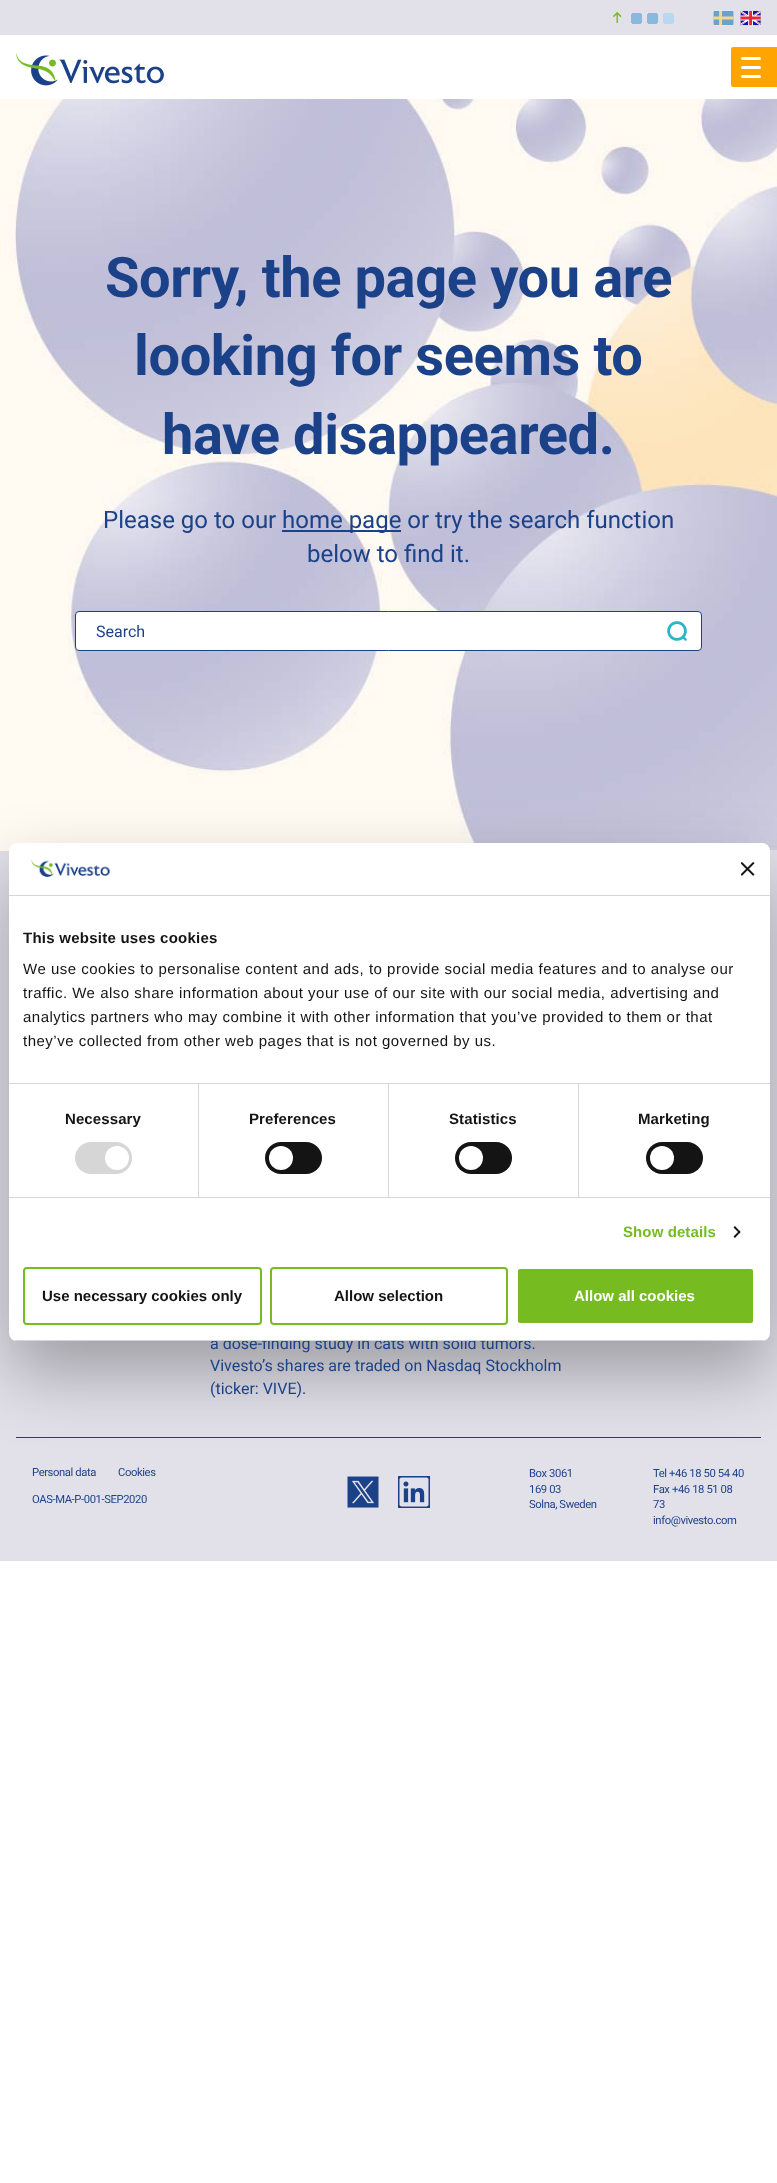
async function draw(canvas) {
  canvas.width = 777;
  canvas.height = 2183;
  const ctx = canvas.getContext('2d');
  ctx.miterLimit = 4;
  ctx.fontKerning = 'normal';
  function label(s, x, y, font, color) {
    ctx.font = font;
    ctx.fillStyle = color;
    ctx.fillText(s, x, y);
  }
  function rect(x, y, w, h, color) {
    ctx.fillStyle = color;
    ctx.fillRect(x, y, w, h);
  }
  function roundedRect(x, y, w, h, r, color) {
    ctx.fillStyle = color;
    ctx.beginPath();
    ctx.roundRect(x, y, w, h, r);
    ctx.fill();
  }
  async function image(src, x, y, w, h) {
    const img = new Image();
    img.src = src;
    await img.decode();
    ctx.drawImage(img, x, y, w, h);
  }
  let path;

  rect(0, 0, 777, 2183, '#fff');
  rect(0, 0, 777, 35, '#e2e1ea');
  await image('assets/img1.png', 613, 11, 9, 12);
  await image('assets/img2.png', 631, 13, 43, 11);
  await image('assets/img3.png', 713, 10, 21, 16);
  await image('assets/img4.png', 740, 10, 21, 16);
  await image('assets/img5.png', 16, 53, 148, 33);
  ctx.fillStyle = '#ffa400';
  ctx.beginPath();
  ctx.roundRect(731, 47, 46, 40, [2, 0, 0, 2]);
  ctx.fill();
  roundedRect(741, 66, 20, 3, 1.5, '#fff');
  roundedRect(741, 57, 20, 3, 1.5, '#fff');
  roundedRect(741, 75, 20, 3, 1.5, '#fff');
  await image('assets/img6.png', 0, 99, 777, 752);
  ctx.letterSpacing = '-0.4px';
  label('Sorry, the page you are', 105, 297, 'bold 56px Roboto', '#1b4289');
  label('looking for seems to', 134, 375, 'bold 56px Roboto', '#1b4289');
  label('have disappeared.', 162, 454, 'bold 56px Roboto', '#1b4289');
  ctx.letterSpacing = '0px';
  label('Please go to our', 103, 528, '24px Roboto', '#1b4289');
  rect(282, 530, 119, 2, '#1b4289');
  label('home page or try the search function', 282, 528, '24px Roboto', '#1b4289');
  label('below to find it.', 307, 562, '24px Roboto', '#1b4289');
  ctx.fillStyle = '#fff';
  ctx.beginPath();
  ctx.roundRect(75.5, 611.5, 626, 39, 3.5);
  ctx.fill();
  ctx.strokeStyle = '#1b4289';
  ctx.stroke();
  label('Search', 96, 637, '16px Roboto', '#1b4289');
  await image('assets/img7.png', 667, 621, 20, 20);
  rect(0, 851, 777, 710, '#e2e1ea');
  rect(16, 1437, 745, 1, '#1b4289');
  ctx.fillStyle = '#0000004d';
  ctx.filter = 'blur(34px)';
  ctx.beginPath();
  ctx.roundRect(9, 875, 761, 498, 8);
  ctx.fill();
  ctx.filter = 'none';
  label('a dose-finding study in cats with solid tumors.', 210, 1349, '16px Roboto', '#1b4289');
  roundedRect(9, 843, 761, 498, 8, '#fff');
  rect(9, 895, 761, 1, '#d6d6d6');
  await image('assets/img8.png', 31, 859, 79, 18);
  await image('assets/img9.png', 741, 862, 14, 14);
  rect(9, 1083, 761, 1, '#d6d6d6');
  ctx.letterSpacing = '0.25px';
  label('This website uses cookies', 23, 943, 'bold 15px Liberation Sans', '#141414');
  ctx.letterSpacing = '0.5px';
  label('We use cookies to personalise content and ads, to provide social media features and to analyse our', 23, 974, '15px Liberation Sans', '#141414');
  label('traffic. We also share information about your use of our site with our social media, advertising and', 23, 998, '15px Liberation Sans', '#141414');
  label('analytics partners who may combine it with other information that you’ve provided to them or that', 23, 1022, '15px Liberation Sans', '#141414');
  label('they’ve collected from other web pages that is not governed by us.', 23, 1046, '15px Liberation Sans', '#141414');
  rect(9, 1197, 761, 1, '#d6d6d6');
  rect(198, 1084, 1, 113, '#d6d6d6');
  ctx.letterSpacing = '0.1px';
  label('Necessary', 65, 1124, 'bold 15px Liberation Sans', '#141414');
  roundedRect(75, 1142, 57, 32, 16, '#d6d6d6');
  ctx.fillStyle = '#fff';
  ctx.beginPath();
  ctx.arc(117, 1158, 12, 0, 2 * Math.PI);
  ctx.fill();
  rect(388, 1084, 1, 113, '#d6d6d6');
  label('Preferences', 249, 1124, 'bold 15px Liberation Sans', '#141414');
  roundedRect(265, 1142, 57, 32, 16, '#141414');
  ctx.fillStyle = '#fff';
  ctx.beginPath();
  ctx.arc(281, 1158, 12, 0, 2 * Math.PI);
  ctx.fill();
  rect(578, 1084, 1, 113, '#d6d6d6');
  label('Statistics', 449, 1124, 'bold 15px Liberation Sans', '#141414');
  roundedRect(455, 1142, 57, 32, 16, '#141414');
  ctx.fillStyle = '#fff';
  ctx.beginPath();
  ctx.arc(471, 1158, 12, 0, 2 * Math.PI);
  ctx.fill();
  label('Marketing', 638, 1124, 'bold 15px Liberation Sans', '#141414');
  roundedRect(646, 1142, 57, 32, 16, '#141414');
  ctx.fillStyle = '#fff';
  ctx.beginPath();
  ctx.arc(662, 1158, 12, 0, 2 * Math.PI);
  ctx.fill();
  label('Show details', 623, 1237, 'bold 15px Liberation Sans', '#76bc20');
  ctx.fillStyle = '#141414';
  path = new Path2D('M735 1226L740.5 1232L739.5 1233.5L733.5 1227.5Z');
  ctx.fill(path);
  path = new Path2D('M739.5 1230.5L740.5 1232L735 1238L733.5 1236.5Z');
  ctx.fill(path);
  ctx.save();
  ctx.beginPath();
  ctx.roundRect(9, 843, 761, 498, 8);
  ctx.clip();
  rect(9, 1340, 761, 1, '#d6d6d6');
  ctx.restore();
  ctx.beginPath();
  ctx.roundRect(24, 1268, 237, 56, 3);
  ctx.strokeStyle = '#76bc20';
  ctx.lineWidth = 2;
  ctx.stroke();
  ctx.letterSpacing = '0px';
  label('Use necessary cookies only', 42, 1301, 'bold 15px Liberation Sans', '#141414');
  ctx.beginPath();
  ctx.roundRect(271, 1268, 236, 56, 3);
  ctx.stroke();
  label('Allow selection', 334, 1301, 'bold 15px Liberation Sans', '#141414');
  ctx.fillStyle = '#76bc20';
  ctx.beginPath();
  ctx.roundRect(517, 1268, 237, 56, 3);
  ctx.fill();
  ctx.strokeStyle = '#fff';
  ctx.stroke();
  label('Allow all cookies', 574, 1301, 'bold 15px Liberation Sans', '#fff');
  label('Vivesto’s shares are traded on Nasdaq Stockholm', 210, 1371, '16px Roboto', '#1b4289');
  label('(ticker: VIVE).', 210, 1394, '16px Roboto', '#1b4289');
  ctx.letterSpacing = '-0.4px';
  label('Personal data', 32, 1476, '11.25px Roboto', '#1b4289');
  label('Cookies', 118, 1476, '11.25px Roboto', '#1b4289');
  label('OAS-MA-P-001-SEP2020', 32, 1503, '11.25px Roboto', '#1b4289');
  await image('assets/img10.png', 347, 1476, 32, 32);
  await image('assets/img11.png', 398, 1476, 32, 32);
  label('Box 3061', 529, 1477, '11.25px Roboto', '#1b4289');
  label('169 03', 529, 1493, '11.25px Roboto', '#1b4289');
  label('Solna, Sweden', 529, 1508, '11.25px Roboto', '#1b4289');
  label('Tel +46 18 50 54 40', 653, 1477, '11.25px Roboto', '#1b4289');
  label('Fax +46 18 51 08', 653, 1493, '11.25px Roboto', '#1b4289');
  label('73', 653, 1508, '11.25px Roboto', '#1b4289');
  label('info@vivesto.com', 653, 1524, '11.25px Roboto', '#1b4289');
}

draw(document.querySelector('canvas'));
